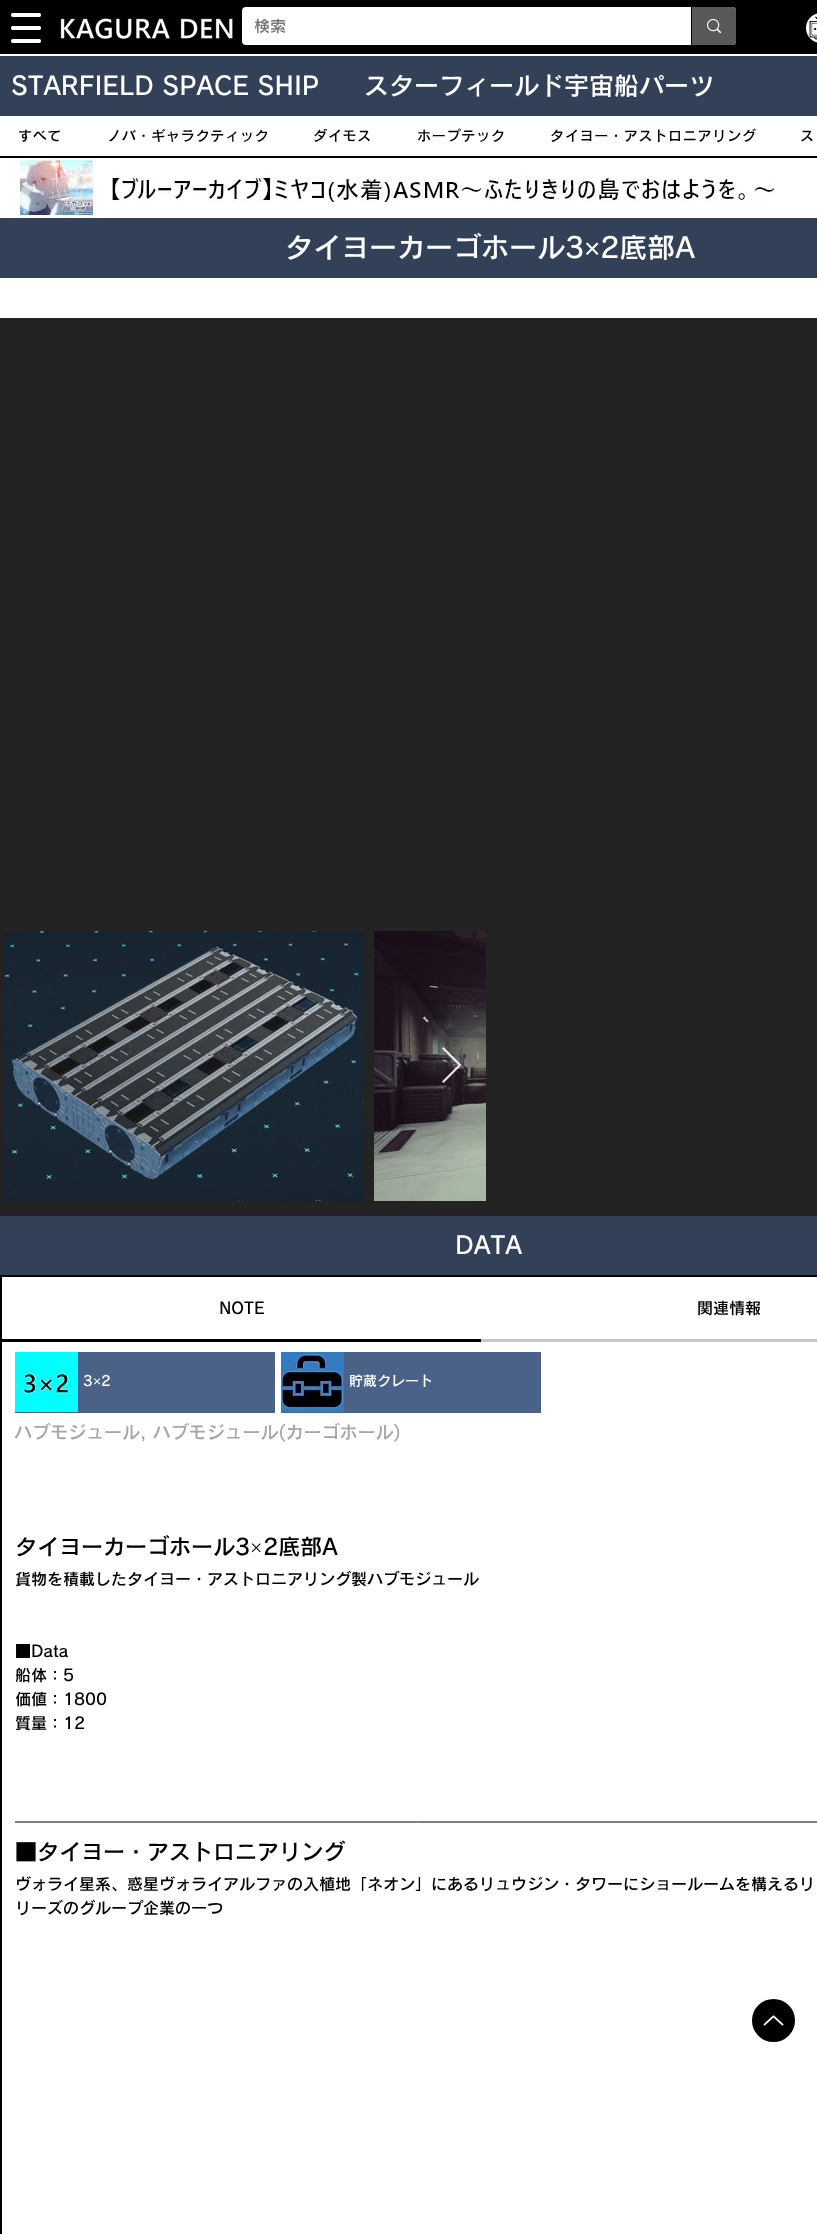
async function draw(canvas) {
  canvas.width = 817;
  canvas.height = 2234;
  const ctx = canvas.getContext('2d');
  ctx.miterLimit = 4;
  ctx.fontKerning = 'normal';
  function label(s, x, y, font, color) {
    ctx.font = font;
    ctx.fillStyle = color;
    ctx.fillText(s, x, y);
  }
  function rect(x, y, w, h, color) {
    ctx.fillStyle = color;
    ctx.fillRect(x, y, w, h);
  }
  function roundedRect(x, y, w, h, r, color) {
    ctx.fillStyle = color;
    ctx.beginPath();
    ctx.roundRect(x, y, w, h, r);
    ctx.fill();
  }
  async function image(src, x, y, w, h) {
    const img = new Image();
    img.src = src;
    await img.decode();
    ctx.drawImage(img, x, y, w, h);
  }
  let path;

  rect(0, 0, 817, 2234, '#fff');
  rect(0, 0, 817, 54, '#000');
  await image('assets/img1.png', 11, 13, 30, 30);
  await image('assets/img2.png', 60, 18, 173, 21);
  roundedRect(242, 7, 494, 38, 4, '#fff');
  label('検索', 254, 32, '600 16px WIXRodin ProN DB', '#787878');
  ctx.fillStyle = '#595959';
  ctx.beginPath();
  ctx.roundRect(691, 7, 45, 38, [0, 4, 4, 0]);
  ctx.fill();
  rect(691, 7, 1, 38, '#000');
  await image('assets/img3.png', 707, 19, 14, 14);
  await image('assets/img4.png', 806, 13, 11, 30);
  rect(0, 56, 817, 60, '#324158');
  label('STARFIELD SPACE SHIP', 11, 95, '600 25px WIXRodin ProN DB', '#fff');
  label('スターフィールド宇宙船パーツ', 364, 95, '600 25px WIXRodin ProN DB', '#fff');
  rect(0, 156, 817, 2, '#000');
  ctx.letterSpacing = '0.75px';
  label('すべて', 18, 141, '600 14px WIXRodin ProN DB', '#000');
  label('ノバ・ギャラクティック', 107, 141, '600 14px WIXRodin ProN DB', '#000');
  label('ダイモス', 313, 141, '600 14px WIXRodin ProN DB', '#000');
  label('ホープテック', 417, 141, '600 14px WIXRodin ProN DB', '#000');
  label('タイヨー・アストロニアリング', 550, 141, '600 14px WIXRodin ProN DB', '#000');
  label('ス', 800, 141, '600 14px WIXRodin ProN DB', '#000');
  await image('assets/img5.png', 16, 158, 760, 60);
  rect(0, 218, 817, 60, '#324158');
  ctx.letterSpacing = '0px';
  label('タイヨーカーゴホール3', 285, 258, '600 28px WIXRodin ProN DB', '#fff');
  label('×', 584, 258, '28px Liberation Sans', '#fff');
  label('2底部A', 600, 258, '600 28px WIXRodin ProN DB', '#fff');
  rect(0, 318, 817, 598, '#242323');
  rect(0, 916, 817, 300, '#242323');
  await image('assets/img6.png', 4, 931, 360, 270);
  await image('assets/img7.png', 374, 931, 112, 270);
  ctx.fillStyle = '#ffffffe6';
  path = new Path2D('M442 1048.5L443.5 1047L461.5 1065L443.5 1083L442 1081.5L458.5 1065Z');
  ctx.fill(path);
  rect(0, 1216, 817, 59, '#324158');
  label('DATA', 455, 1254, '600 24px WIXRodin ProN DB', '#fff');
  rect(0, 1275, 817, 2, '#000');
  rect(0, 1275, 2, 67, '#000');
  rect(2, 1339, 479, 3, '#000');
  label('NOTE', 219, 1314, '600 16px WIXRodin ProN DB', '#000');
  rect(481, 1339, 336, 3, '#c7c7c7');
  label('関連情報', 697, 1314, '600 16px WIXRodin ProN DB', '#000');
  rect(0, 1342, 2, 892, '#000');
  rect(15, 1352, 260, 61, '#4a6287');
  await image('assets/img8.png', 15, 1352, 63, 60);
  label('3', 83, 1386, '600 14px WIXRodin ProN DB', '#fff');
  label('×', 93, 1386, '14px Liberation Sans', '#fff');
  label('2', 101, 1386, '600 14px WIXRodin ProN DB', '#fff');
  rect(281, 1352, 260, 61, '#4a6287');
  await image('assets/img9.png', 281, 1352, 63, 60);
  label('貯蔵クレート', 349, 1386, '600 14px WIXRodin ProN DB', '#fff');
  label('ハブモジュール, ハブモジュール(カーゴホール)', 14, 1439, '600 18px WIXRodin ProN DB', '#a6a6a6');
  label('タイヨーカーゴホール3', 15, 1555, '600 22px WIXRodin ProN DB', '#000');
  label('×', 250, 1555, '22px Liberation Serif', '#000');
  label('2底部A', 263, 1555, '600 22px WIXRodin ProN DB', '#000');
  label('貨物を積載したタイヨー・アストロニアリング製ハブモジュール', 15, 1585, '600 16px WIXRodin ProN DB', '#000');
  label('■Data', 15, 1657, '600 16px WIXRodin ProN DB', '#000');
  label('船体：5', 15, 1681, '600 16px WIXRodin ProN DB', '#000');
  label('価値：1800', 15, 1705, '600 16px WIXRodin ProN DB', '#000');
  label('質量：12', 15, 1729, '600 16px WIXRodin ProN DB', '#000');
  path = new Path2D('M15 1822H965');
  ctx.strokeStyle = '#000';
  ctx.stroke(path);
  label('■タイヨー・アストロニアリング', 15, 1860, '600 22px WIXRodin ProN DB', '#000');
  label('ヴォライ星系、惑星ヴォライアルファの入植地「ネオン」にあるリュウジン・タワーにショールームを構えるリ', 15, 1890, '600 16px WIXRodin ProN DB', '#000');
  label('リーズのグループ企業の一つ', 15, 1914, '600 16px WIXRodin ProN DB', '#000');
  ctx.beginPath();
  ctx.arc(773.5, 2020.5, 22.5, 0, 2 * Math.PI);
  ctx.fill();
  ctx.strokeStyle = '#fff';
  ctx.lineWidth = 2;
  ctx.stroke();
  await image('assets/img10.png', 763, 2015, 21, 11);
}

draw(document.querySelector('canvas'));
